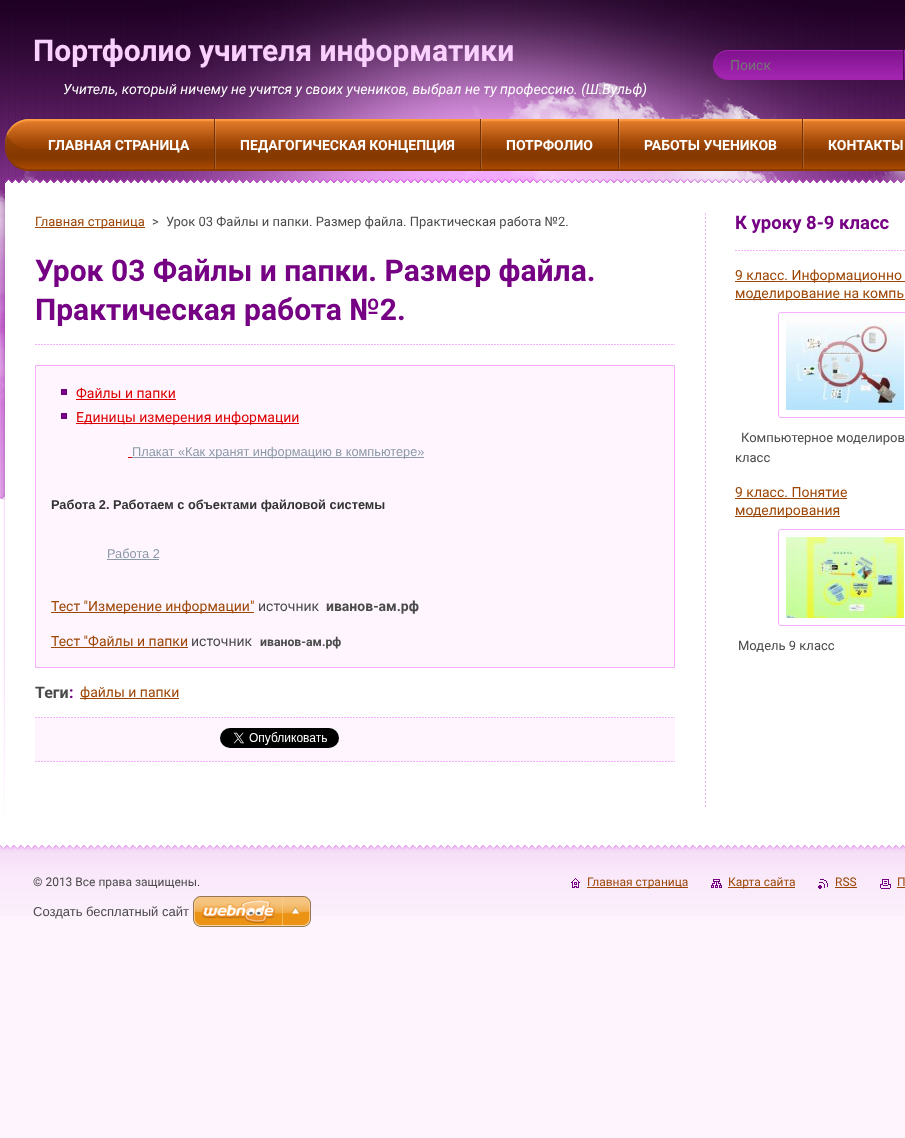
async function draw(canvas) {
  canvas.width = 905;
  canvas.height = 1138;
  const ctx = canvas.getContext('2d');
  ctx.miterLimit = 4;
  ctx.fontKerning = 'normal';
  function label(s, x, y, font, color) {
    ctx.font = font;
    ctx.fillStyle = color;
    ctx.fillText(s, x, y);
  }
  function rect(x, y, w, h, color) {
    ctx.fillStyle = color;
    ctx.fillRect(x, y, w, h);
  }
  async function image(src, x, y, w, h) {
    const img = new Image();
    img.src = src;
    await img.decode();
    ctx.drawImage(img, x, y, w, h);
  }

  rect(0, 0, 905, 1138, '#fdf4fd');
  rect(0, 499, 905, 346, '#fff');
  await image('assets/img1.png', 0, 0, 905, 499);
  await image('assets/img2.png', 0, 0, 905, 500);
  label('Портфолио учителя информатики', 33, 61, 'bold 30px Roboto', '#fad0ff');
  label('Учитель, который ничему не учится у своих учеников, выбрал не ту профессию. (Ш.Вульф)', 63, 94, 'italic 14px Roboto', '#fff');
  await image('assets/img3.png', 713, 50, 190, 30);
  label('Поиск', 730, 70, '14px Roboto', '#757575');
  await image('assets/img4.png', 903, 50, 2, 30);
  await image('assets/img5.png', 5, 119, 900, 52);
  label('ГЛАВНАЯ СТРАНИЦА', 48, 150, 'bold 14px Roboto', '#fff');
  await image('assets/img6.png', 214, 119, 2, 50);
  label('ПЕДАГОГИЧЕСКАЯ КОНЦЕПЦИЯ', 240, 150, 'bold 14px Roboto', '#fff');
  await image('assets/img6.png', 480, 119, 2, 50);
  label('ПОТРФОЛИО', 506, 150, 'bold 14px Roboto', '#fff');
  await image('assets/img6.png', 618, 119, 2, 50);
  label('РАБОТЫ УЧЕНИКОВ', 644, 150, 'bold 14px Roboto', '#fff');
  await image('assets/img6.png', 802, 119, 2, 50);
  label('КОНТАКТЫ', 828, 150, 'bold 14px Roboto', '#fff');
  await image('assets/img7.png', 3, 500, 2, 316);
  await image('assets/img8.png', 705, 213, 1, 594);
  rect(35, 227, 110, 1, '#9d4605');
  label('Главная страница', 35, 226, '13px Roboto', '#9d4605');
  label('>', 152, 226, '13px Roboto', '#4a4a4a');
  label('Урок 03 Файлы и папки. Размер файла. Практическая работа №2.', 166, 226, '13px Roboto', '#4a4a4a');
  await image('assets/img9.png', 35, 344, 640, 1);
  label('Урок 03 Файлы и папки. Размер файла.', 35, 281, 'bold 30px Roboto', '#750083');
  label('Практическая работа №2.', 35, 320, 'bold 30px Roboto', '#750083');
  ctx.fillStyle = '#fef5ff';
  ctx.beginPath();
  ctx.rect(35.5, 365.5, 639, 302);
  ctx.fill();
  ctx.strokeStyle = '#f7aeff';
  ctx.stroke();
  rect(61, 389, 6, 6, '#750083');
  label('Файлы и папки', 76, 398, '14px Roboto', '#d00');
  rect(76, 399, 100, 1, '#d00');
  rect(61, 413, 6, 6, '#750083');
  rect(76, 423, 223, 1, '#d00');
  label('Единицы измерения информации', 76, 422, '14px Roboto', '#d00');
  rect(128, 457, 4, 1, '#d00');
  rect(132, 457, 292, 1, '#8c9aa8');
  label('Плакат «Как хранят информацию в компьютере»', 132, 456, '12.8px Liberation Sans', '#8c9aa8');
  label('Работа 2. Работаем с объектами файловой системы', 51, 509, 'bold 12.8px Liberation Sans', '#333');
  label('Работа 2', 107, 558, '12.8px Liberation Sans', '#8c9aa8');
  rect(107, 559, 52, 1, '#8c9aa8');
  rect(51, 612, 203, 1, '#9d4605');
  label('Тест "Измерение информации"', 51, 611, '14px Roboto', '#9d4605');
  label('источник', 258, 611, '14px Roboto', '#4a4a4a');
  label('иванов-ам.рф', 326, 611, 'bold 14px Roboto', '#4a4a4a');
  label('Тест "Файлы и папки', 51, 646, '14px Roboto', '#9d4605');
  rect(51, 647, 137, 1, '#9d4605');
  label('источник', 191, 646, '14px Roboto', '#4a4a4a');
  label('иванов-ам.рф', 260, 646, 'bold 12.25px Roboto', '#4a4a4a');
  label('Теги', 35, 698, 'bold 16px Roboto', '#4a4a4a');
  label(':', 69, 698, 'bold 16px Roboto', '#750083');
  rect(80, 698, 99, 1, '#9d4605');
  label('файлы и папки', 80, 697, '14px Roboto', '#9d4605');
  await image('assets/img9.png', 35, 717, 640, 1);
  rect(35, 718, 640, 43, '#fef5ff');
  await image('assets/img9.png', 35, 761, 640, 1);
  await image('assets/img10.png', 220, 728, 119, 20);
  await image('assets/img11.png', 735, 250, 170, 1);
  label('К уроку 8-9 класс', 735, 229, 'bold 18.5px Roboto', '#750083');
  rect(735, 281, 170, 1, '#9d4605');
  label('9 класс. Информационно', 735, 280, '14px Roboto', '#9d4605');
  rect(735, 299, 170, 1, '#9d4605');
  label('моделирование на компь', 735, 298, '14px Roboto', '#9d4605');
  ctx.beginPath();
  ctx.roundRect(778.5, 312.5, 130, 105, 2.5);
  ctx.stroke();
  await image('assets/img12.png', 786, 320, 118, 90);
  label('Компьютерное моделиров', 741, 442, '13px Roboto', '#4a4a4a');
  label('класс', 735, 462, '13px Roboto', '#4a4a4a');
  label('9 класс. Понятие', 735, 497, '14px Roboto', '#9d4605');
  rect(735, 498, 112, 1, '#9d4605');
  rect(735, 516, 105, 1, '#9d4605');
  label('моделирования', 735, 515, '14px Roboto', '#9d4605');
  ctx.beginPath();
  ctx.roundRect(778.5, 529.5, 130, 96, 2.5);
  ctx.stroke();
  await image('assets/img13.png', 786, 537, 118, 81);
  label('Модель 9 класс', 738, 650, '13px Roboto', '#4a4a4a');
  await image('assets/img14.png', 0, 845, 905, 71);
  label('© 2013 Все права защищены.', 33, 886, '12px Roboto', '#4a4a4a');
  await image('assets/img15.png', 571, 878, 9, 10);
  rect(587, 887, 101, 1, '#9d4605');
  label('Главная страница', 587, 886, '12px Roboto', '#9d4605');
  await image('assets/img16.png', 711, 879, 11, 9);
  rect(728, 887, 67, 1, '#9d4605');
  label('Карта сайта', 728, 886, '12px Roboto', '#9d4605');
  await image('assets/img17.png', 818, 879, 10, 10);
  label('RSS', 835, 886, '12px Roboto', '#9d4605');
  rect(835, 887, 22, 1, '#9d4605');
  await image('assets/img18.png', 880, 879, 11, 10);
  label('П', 897, 886, '12px Roboto', '#9d4605');
  rect(897, 887, 8, 1, '#9d4605');
  label('Создать бесплатный сайт', 33, 916, '13px Liberation Sans', '#4a4a4a');
  await image('assets/img19.png', 193, 896, 118, 31);
}

draw(document.querySelector('canvas'));
